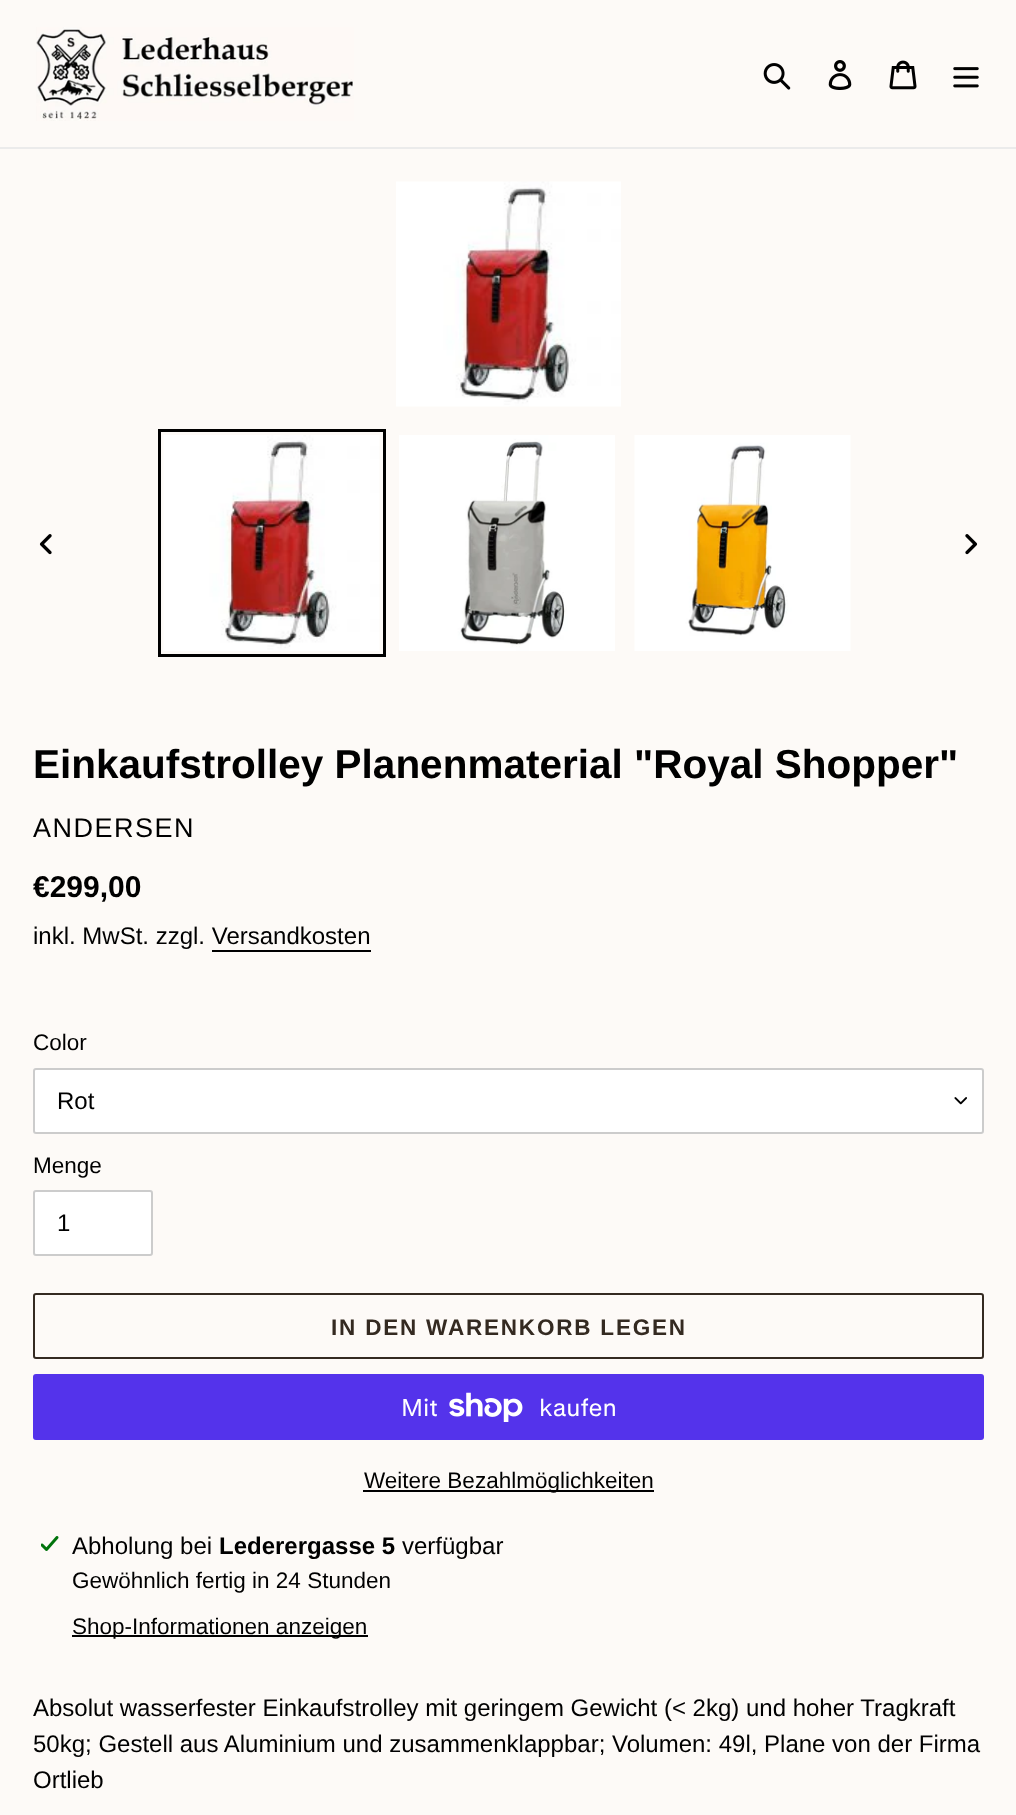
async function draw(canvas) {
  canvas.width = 1016;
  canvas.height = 1815;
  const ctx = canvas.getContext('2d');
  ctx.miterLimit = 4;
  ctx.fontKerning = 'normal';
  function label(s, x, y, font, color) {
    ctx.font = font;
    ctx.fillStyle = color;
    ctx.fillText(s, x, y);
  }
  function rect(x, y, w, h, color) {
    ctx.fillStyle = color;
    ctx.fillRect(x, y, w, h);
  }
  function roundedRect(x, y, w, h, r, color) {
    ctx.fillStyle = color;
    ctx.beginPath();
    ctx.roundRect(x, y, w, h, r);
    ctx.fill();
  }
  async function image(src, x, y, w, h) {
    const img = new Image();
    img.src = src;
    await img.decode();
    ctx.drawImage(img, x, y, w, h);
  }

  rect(0, 0, 1016, 1815, '#fdfaf7');
  rect(0, 147, 1016, 2, '#ebebeb');
  await image('assets/img1.png', 36, 27, 318, 94);
  await image('assets/img2.png', 763, 63, 28, 27);
  await image('assets/img3.png', 828, 60, 24, 30);
  await image('assets/img4.png', 889, 60, 28, 30);
  await image('assets/img5.png', 953, 67, 26, 21);
  await image('assets/img6.png', 396, 181, 225, 226);
  await image('assets/img7.png', 39, 534, 13, 21);
  ctx.strokeStyle = '#000';
  ctx.lineWidth = 3;
  ctx.strokeRect(159.5, 430.5, 225, 225);
  await image('assets/img8.png', 163, 435, 217, 216);
  await image('assets/img9.png', 399, 435, 216, 216);
  await image('assets/img10.png', 634, 435, 217, 216);
  await image('assets/img11.png', 965, 534, 13, 21);
  label('Einkaufstrolley Planenmaterial "Royal Shopper"', 33, 778, 'bold 40.5px Liberation Sans', '#000');
  ctx.letterSpacing = '1.5px';
  label('ANDERSEN', 33, 837, '27px Liberation Sans', '#000');
  ctx.letterSpacing = '0px';
  label('€299,00', 33, 897, 'bold 30px Liberation Sans', '#000');
  label('inkl. MwSt. zzgl. Versandkosten', 33, 944, '24px Liberation Sans', '#000');
  rect(212, 950, 159, 2, '#000');
  label('Color', 33, 1050, '22.5px Liberation Sans', '#000');
  roundedRect(33, 1068, 951, 66, 3, '#fff');
  await image('assets/img12.png', 954, 1097, 13, 8);
  ctx.beginPath();
  ctx.roundRect(34, 1069, 949, 64, 2);
  ctx.strokeStyle = '#ccc';
  ctx.lineWidth = 2;
  ctx.stroke();
  label('Rot', 57, 1109, '24px Liberation Sans', '#000');
  label('Menge', 33, 1173, '22.5px Liberation Sans', '#000');
  ctx.fillStyle = '#fff';
  ctx.beginPath();
  ctx.roundRect(34, 1191, 118, 64, 2);
  ctx.fill();
  ctx.stroke();
  label('1', 57, 1231, '24px Liberation Sans', '#000');
  ctx.beginPath();
  ctx.roundRect(34, 1294, 949, 64, 2);
  ctx.strokeStyle = '#342a21';
  ctx.stroke();
  ctx.letterSpacing = '1.8px';
  label('IN DEN WARENKORB LEGEN', 331, 1335, 'bold 22.5px Liberation Sans', '#342a21');
  roundedRect(33, 1374, 951, 66, 3, '#5433eb');
  ctx.letterSpacing = '0px';
  label('Mit', 401, 1416, '24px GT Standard', '#fff');
  await image('assets/img13.png', 449, 1392, 74, 30);
  label('kaufen', 539, 1416, '24px GT Standard', '#fff');
  rect(363, 1490, 291, 2, '#000');
  label('Weitere Bezahlmöglichkeiten', 364, 1488, '22.5px Liberation Sans', '#000');
  await image('assets/img14.png', 41, 1536, 18, 15);
  label('Abholung bei', 72, 1554, '24px Liberation Sans', '#000');
  label('Lederergasse 5', 219, 1554, 'bold 24px Liberation Sans', '#000');
  label('verfügbar', 402, 1554, '24px Liberation Sans', '#000');
  label('Gewöhnlich fertig in 24 Stunden', 72, 1588, '22.5px Liberation Sans', '#000');
  rect(72, 1635, 296, 2, '#000');
  label('Shop-Informationen anzeigen', 72, 1634, '22.5px Liberation Sans', '#000');
  label('Absolut wasserfester Einkaufstrolley mit geringem Gewicht (< 2kg) und hoher Tragkraft', 33, 1716, '24px Liberation Sans', '#000');
  label('50kg; Gestell aus Aluminium und zusammenklappbar; Volumen: 49l, Plane von der Firma', 33, 1752, '24px Liberation Sans', '#000');
  label('Ortlieb', 33, 1788, '24px Liberation Sans', '#000');
}

draw(document.querySelector('canvas'));
